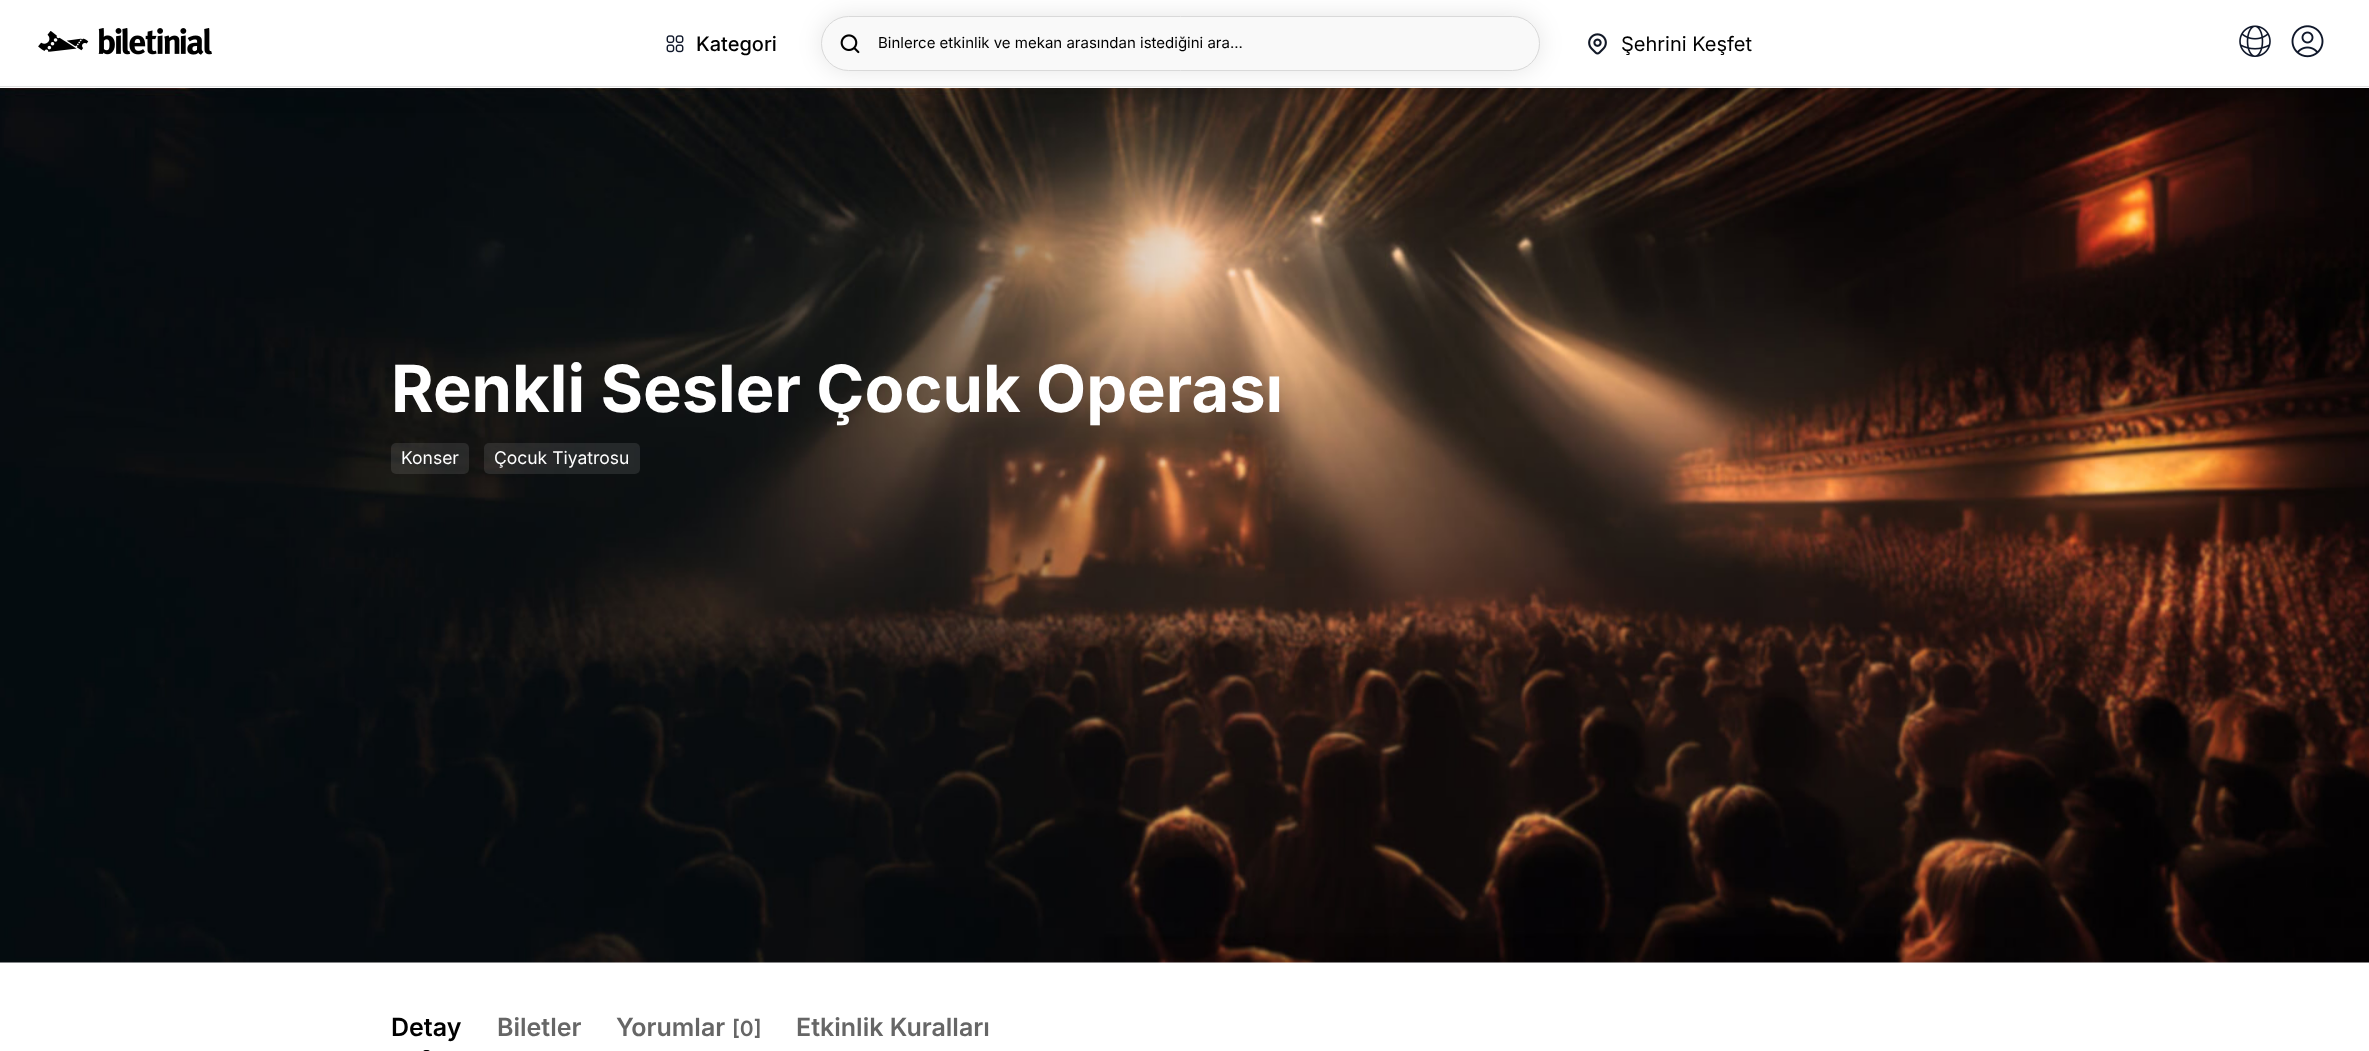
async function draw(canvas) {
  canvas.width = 2369;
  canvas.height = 1051;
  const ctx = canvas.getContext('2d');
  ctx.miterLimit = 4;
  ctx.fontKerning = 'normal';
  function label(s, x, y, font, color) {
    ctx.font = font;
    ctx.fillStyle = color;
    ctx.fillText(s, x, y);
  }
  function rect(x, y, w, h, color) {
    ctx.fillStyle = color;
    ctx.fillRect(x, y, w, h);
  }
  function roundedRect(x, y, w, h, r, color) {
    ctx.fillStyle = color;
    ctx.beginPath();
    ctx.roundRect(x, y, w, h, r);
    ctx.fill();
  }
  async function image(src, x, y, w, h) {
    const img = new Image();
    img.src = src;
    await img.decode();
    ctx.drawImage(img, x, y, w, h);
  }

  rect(0, 0, 2369, 1051, '#fff');
  await image('assets/img7.png', 0, 88, 2369, 875);
  ctx.fillStyle = '#00000026';
  ctx.filter = 'blur(12.5px)';
  ctx.beginPath();
  ctx.rect(0, 0, 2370, 88);
  ctx.fill();
  ctx.filter = 'none';
  rect(0, 0, 2369, 88, '#fff');
  rect(0, 86, 2369, 1, '#e1e1e1');
  await image('assets/img1.png', 38, 28, 174, 27);
  await image('assets/img2.png', 666, 35, 18, 18);
  label('Kategori', 696, 51, '500 20px Inter', '#000');
  ctx.fillStyle = '#0000001a';
  ctx.filter = 'blur(12.5px)';
  ctx.beginPath();
  ctx.roundRect(821, 16, 719, 55, 27.5);
  ctx.fill();
  ctx.filter = 'none';
  ctx.fillStyle = '#f9f9f9';
  ctx.beginPath();
  ctx.roundRect(821.5, 16.5, 718, 54, 27);
  ctx.fill();
  ctx.strokeStyle = '#d9d9d9';
  ctx.stroke();
  await image('assets/img3.png', 840, 34, 20, 20);
  label('Binlerce etkinlik ve mekan arasından istediğini ara...', 878, 48, '15px Inter', '#000');
  await image('assets/img4.png', 1588, 33, 19, 22);
  label('Şehrini Keşfet', 1621, 51, '20px Inter', '#000');
  await image('assets/img5.png', 2239, 25, 32, 32);
  await image('assets/img6.png', 2291, 25, 33, 33);
  label('Renkli Sesler Çocuk Operası', 391, 412, 'bold 65px Inter', '#fff');
  roundedRect(391, 443, 78, 31, 5, '#ffffff1a');
  label('Konser', 401, 464, '17.5px Inter', '#fff');
  roundedRect(484, 443, 156, 31, 5, '#ffffff1a');
  label('Çocuk Tiyatrosu', 494, 464, '17.5px Inter', '#fff');
  label('Detay', 391, 1036, '600 25px Inter', '#000');
  roundedRect(423, 1050, 7, 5, 3.5, '#000');
  label('Biletler', 497, 1036, '600 25px Inter', '#666');
  label('Yorumlar', 616, 1036, '600 25px Inter', '#666');
  label('[0]', 732, 1036, '600 21px Inter', '#666');
  label('Etkinlik Kuralları', 796, 1036, '600 25px Inter', '#666');
}

draw(document.querySelector('canvas'));
